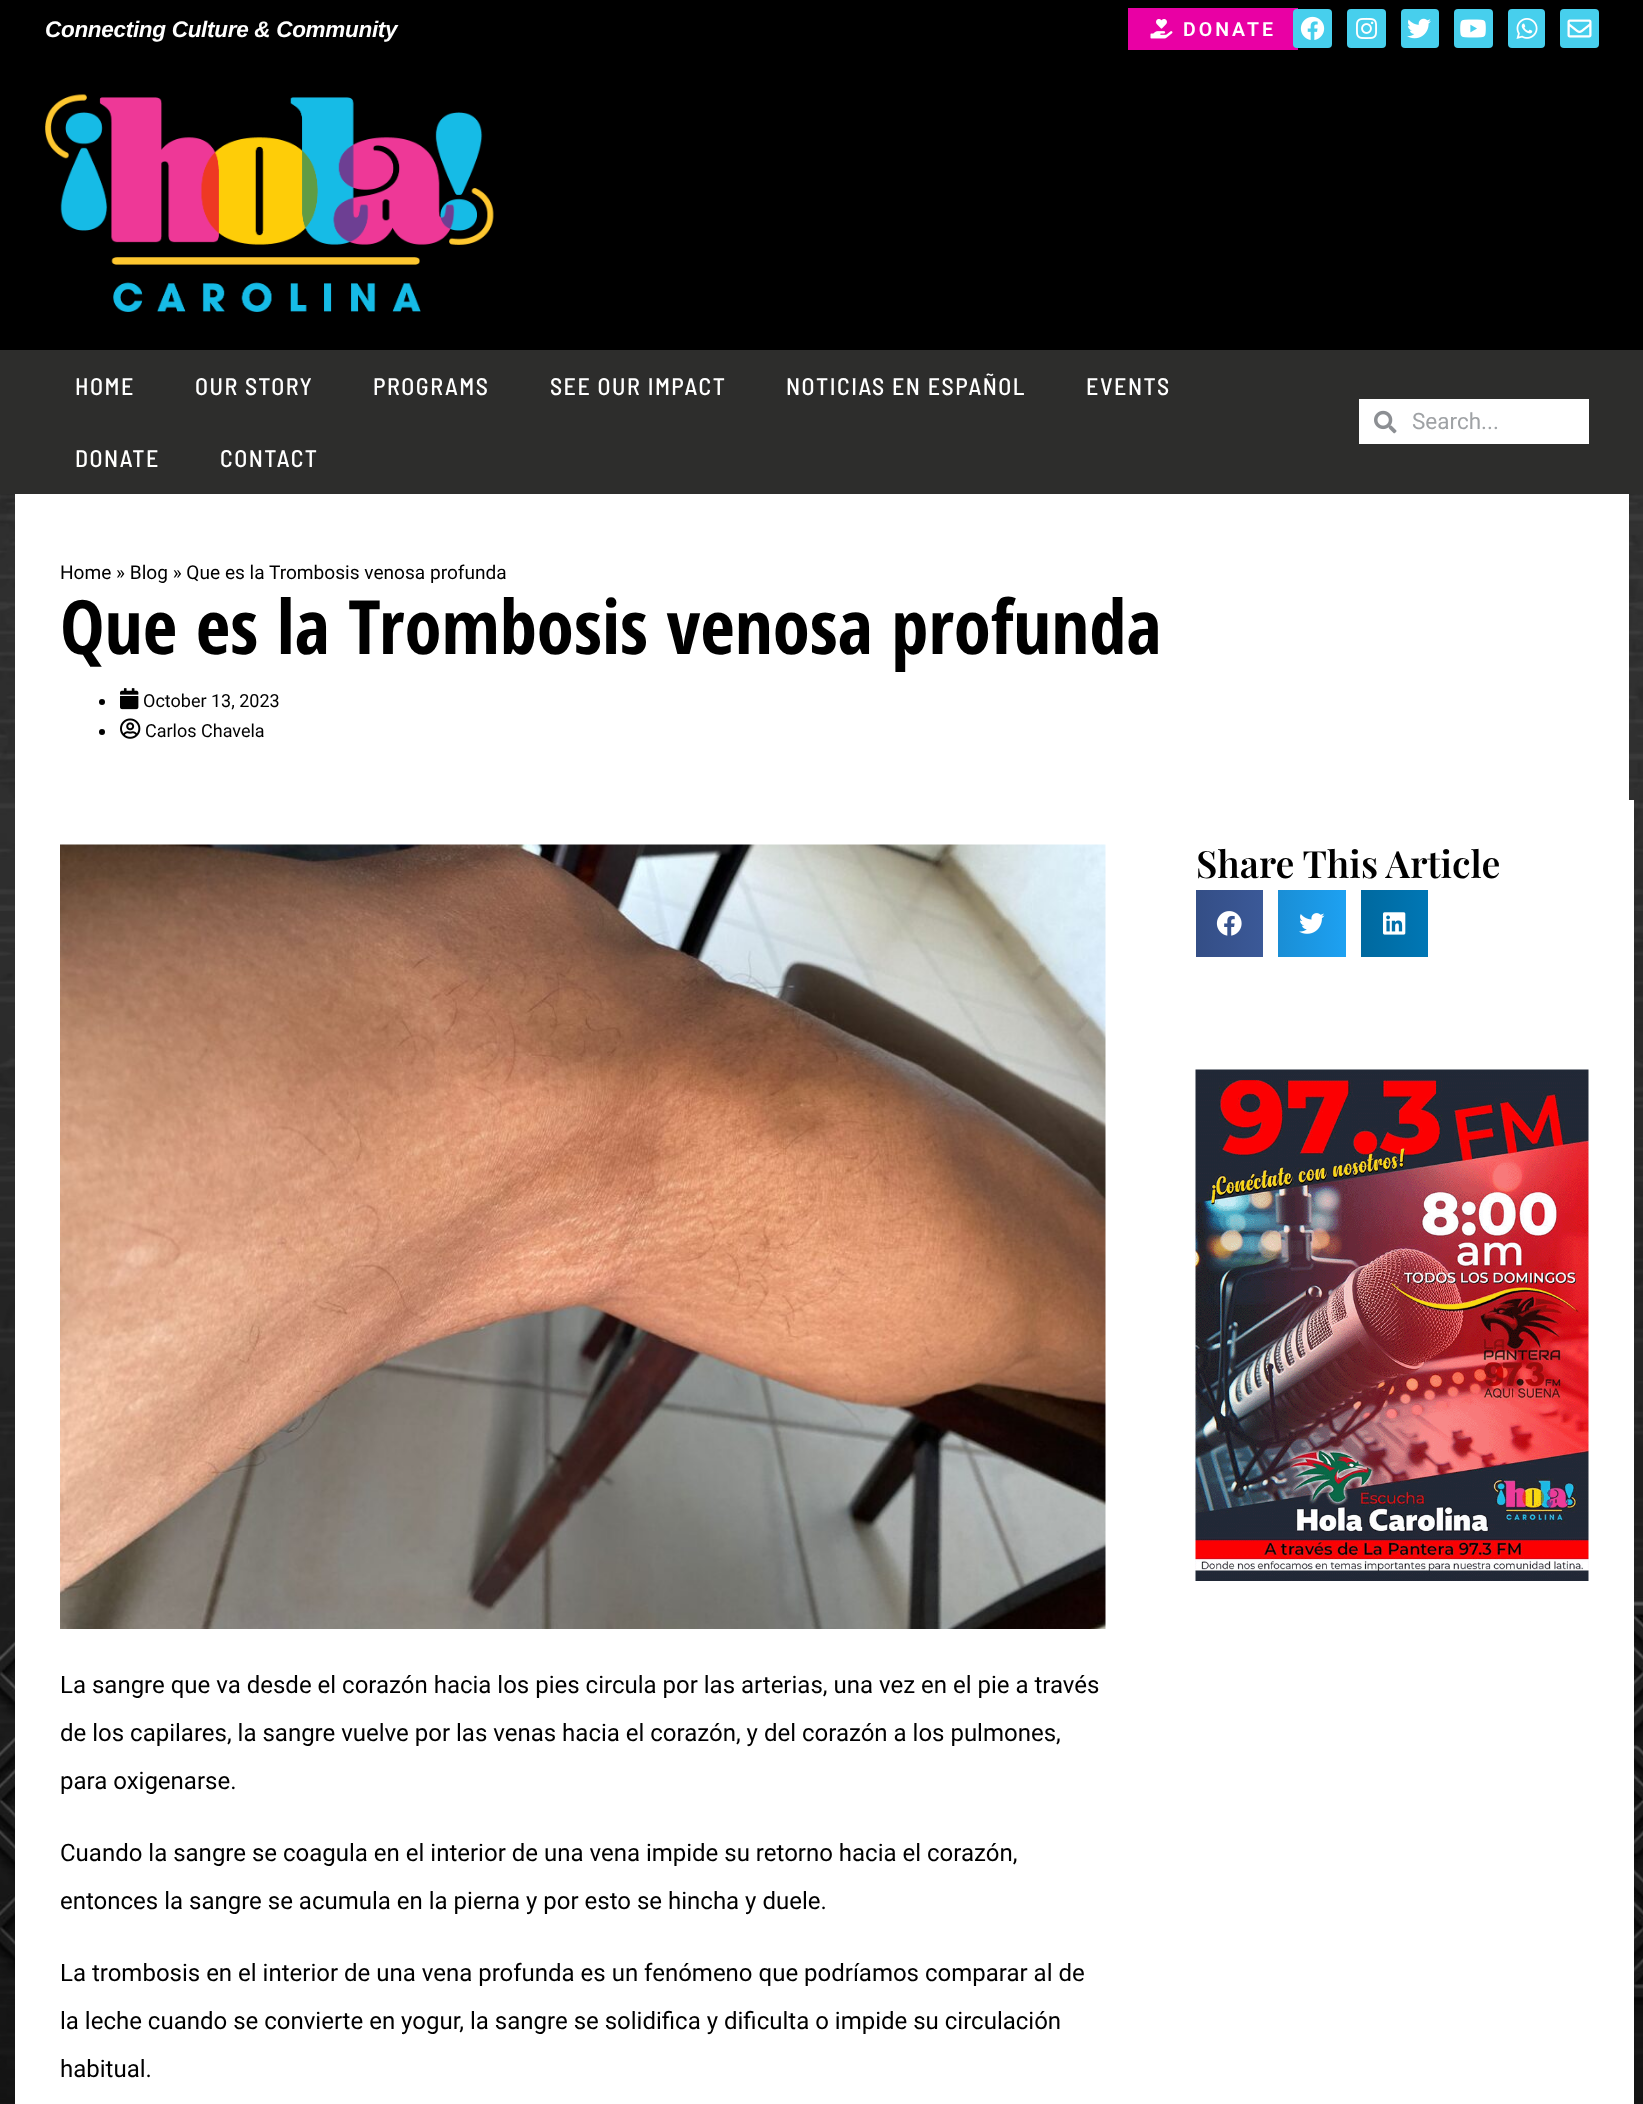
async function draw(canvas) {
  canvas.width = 1643;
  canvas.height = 2104;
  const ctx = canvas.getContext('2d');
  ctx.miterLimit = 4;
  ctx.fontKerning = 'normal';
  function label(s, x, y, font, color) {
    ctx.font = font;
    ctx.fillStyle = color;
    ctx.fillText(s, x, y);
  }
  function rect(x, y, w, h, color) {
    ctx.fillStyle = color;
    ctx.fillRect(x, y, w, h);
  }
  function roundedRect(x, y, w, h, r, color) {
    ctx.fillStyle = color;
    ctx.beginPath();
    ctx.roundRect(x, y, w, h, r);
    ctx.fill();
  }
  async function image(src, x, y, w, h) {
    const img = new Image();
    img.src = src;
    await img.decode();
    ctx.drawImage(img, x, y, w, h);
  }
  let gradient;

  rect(0, 0, 1643, 2104, '#fff');
  await image('assets/img1.png', 0, 494, 1643, 1610);
  ctx.fillStyle = '#00000033';
  ctx.filter = 'blur(15px)';
  ctx.beginPath();
  ctx.rect(0, 0, 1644, 494);
  ctx.fill();
  ctx.filter = 'none';
  rect(0, 0, 1643, 350, '#000');
  ctx.letterSpacing = '-0.3px';
  label('Connecting Culture & Community', 45, 37, 'italic bold 22.5px Liberation Sans', '#fff');
  rect(1128, 8, 170, 42, '#e900a4');
  await image('assets/img2.png', 1150, 19, 23, 20);
  ctx.letterSpacing = '3px';
  label('DONATE', 1183, 36, '600 19.5px Roboto', '#fff');
  roundedRect(1293, 9, 39, 39, 4, '#47cfed');
  await image('assets/img3.png', 1300, 16, 25, 24);
  roundedRect(1347, 9, 39, 39, 4, '#47cfed');
  await image('assets/img4.png', 1356, 17, 22, 22);
  roundedRect(1401, 9, 38, 39, 4, '#47cfed');
  await image('assets/img5.png', 1407, 18, 24, 21);
  roundedRect(1454, 9, 39, 39, 4, '#47cfed');
  await image('assets/img6.png', 1460, 19, 26, 19);
  roundedRect(1508, 9, 37, 39, 4, '#47cfed');
  await image('assets/img7.png', 1516, 18, 22, 21);
  roundedRect(1560, 9, 39, 39, 4, '#47cfed');
  await image('assets/img8.png', 1567, 19, 25, 19);
  await image('assets/img9.png', 45, 94, 449, 218);
  rect(0, 350, 1643, 144, '#2d2d2c');
  ctx.letterSpacing = '1.5px';
  label('HOME', 75, 395, '500 24px Barlow Semi Condensed', '#fff');
  label('OUR STORY', 195, 395, '500 24px Barlow Semi Condensed', '#fff');
  label('PROGRAMS', 373, 395, '500 24px Barlow Semi Condensed', '#fff');
  label('SEE OUR IMPACT', 550, 395, '500 24px Barlow Semi Condensed', '#fff');
  label('NOTICIAS EN ESPAÑOL', 786, 395, '500 24px Barlow Semi Condensed', '#fff');
  label('EVENTS', 1086, 395, '500 24px Barlow Semi Condensed', '#fff');
  label('DONATE', 75, 467, '500 24px Barlow Semi Condensed', '#fff');
  label('CONTACT', 220, 467, '500 24px Barlow Semi Condensed', '#fff');
  rect(1359, 399, 230, 45, '#fff');
  await image('assets/img10.png', 1374, 410, 23, 24);
  ctx.letterSpacing = '0px';
  label('Search...', 1412, 429, '22.5px Roboto', '#9fa2a5');
  rect(15, 494, 1614, 306, '#fff');
  label('Home » Blog » Que es la Trombosis venosa profunda', 60, 579, '19.1px Roboto', '#000');
  label('Que es la Trombosis venosa profunda', 60, 654, 'bold 75px Open Sans Condensed', '#000');
  ctx.beginPath();
  ctx.arc(102, 702, 3, 0, 2 * Math.PI);
  ctx.fill();
  await image('assets/img11.png', 120, 688, 19, 22);
  label('October 13, 2023', 143, 707, '18px Roboto', '#000');
  ctx.beginPath();
  ctx.arc(102, 732, 3, 0, 2 * Math.PI);
  ctx.fill();
  await image('assets/img12.png', 120, 718, 21, 21);
  label('Carlos Chavela', 145, 737, '18px Roboto', '#000');
  rect(15, 800, 1619, 1304, '#fff');
  label('Share This Article', 1196, 878, '600 37.5px Playfair Display', '#000');
  gradient = ctx.createLinearGradient(1196, 923, 1263, 923);
  gradient.addColorStop(0, '#344e86');
  gradient.addColorStop(1, '#3b5998');
  ctx.fillStyle = gradient;
  ctx.fillRect(1196, 890, 67, 67);
  await image('assets/img13.png', 1216, 911, 26, 25);
  gradient = ctx.createLinearGradient(1278, 923, 1346, 923);
  gradient.addColorStop(0, '#1a8ed5');
  gradient.addColorStop(1, '#1da1f2');
  ctx.fillStyle = gradient;
  ctx.fillRect(1278, 890, 68, 67);
  await image('assets/img14.png', 1299, 913, 26, 21);
  gradient = ctx.createLinearGradient(1361, 923, 1428, 923);
  gradient.addColorStop(0, '#00699f');
  gradient.addColorStop(1, '#0077b5');
  ctx.fillStyle = gradient;
  ctx.fillRect(1361, 890, 67, 67);
  await image('assets/img15.png', 1383, 912, 23, 23);
  await image('assets/img16.png', 1195, 1069, 394, 512);
  await image('assets/img17.png', 60, 844, 1046, 785);
  label('La sangre que va desde el corazón hacia los pies circula por las arterias, una vez en el pie a través', 60, 1693, '24px Roboto', '#000');
  label('de los capilares, la sangre vuelve por las venas hacia el corazón, y del corazón a los pulmones,', 60, 1741, '24px Roboto', '#000');
  label('para oxigenarse.', 60, 1789, '24px Roboto', '#000');
  label('Cuando la sangre se coagula en el interior de una vena impide su retorno hacia el corazón,', 60, 1861, '24px Roboto', '#000');
  label('entonces la sangre se acumula en la pierna y por esto se hincha y duele.', 60, 1909, '24px Roboto', '#000');
  label('La trombosis en el interior de una vena profunda es un fenómeno que podríamos comparar al de', 60, 1981, '24px Roboto', '#000');
  label('la leche cuando se convierte en yogur, la sangre se solidifica y dificulta o impide su circulación', 60, 2029, '24px Roboto', '#000');
  label('habitual.', 60, 2077, '24px Roboto', '#000');
}

draw(document.querySelector('canvas'));
